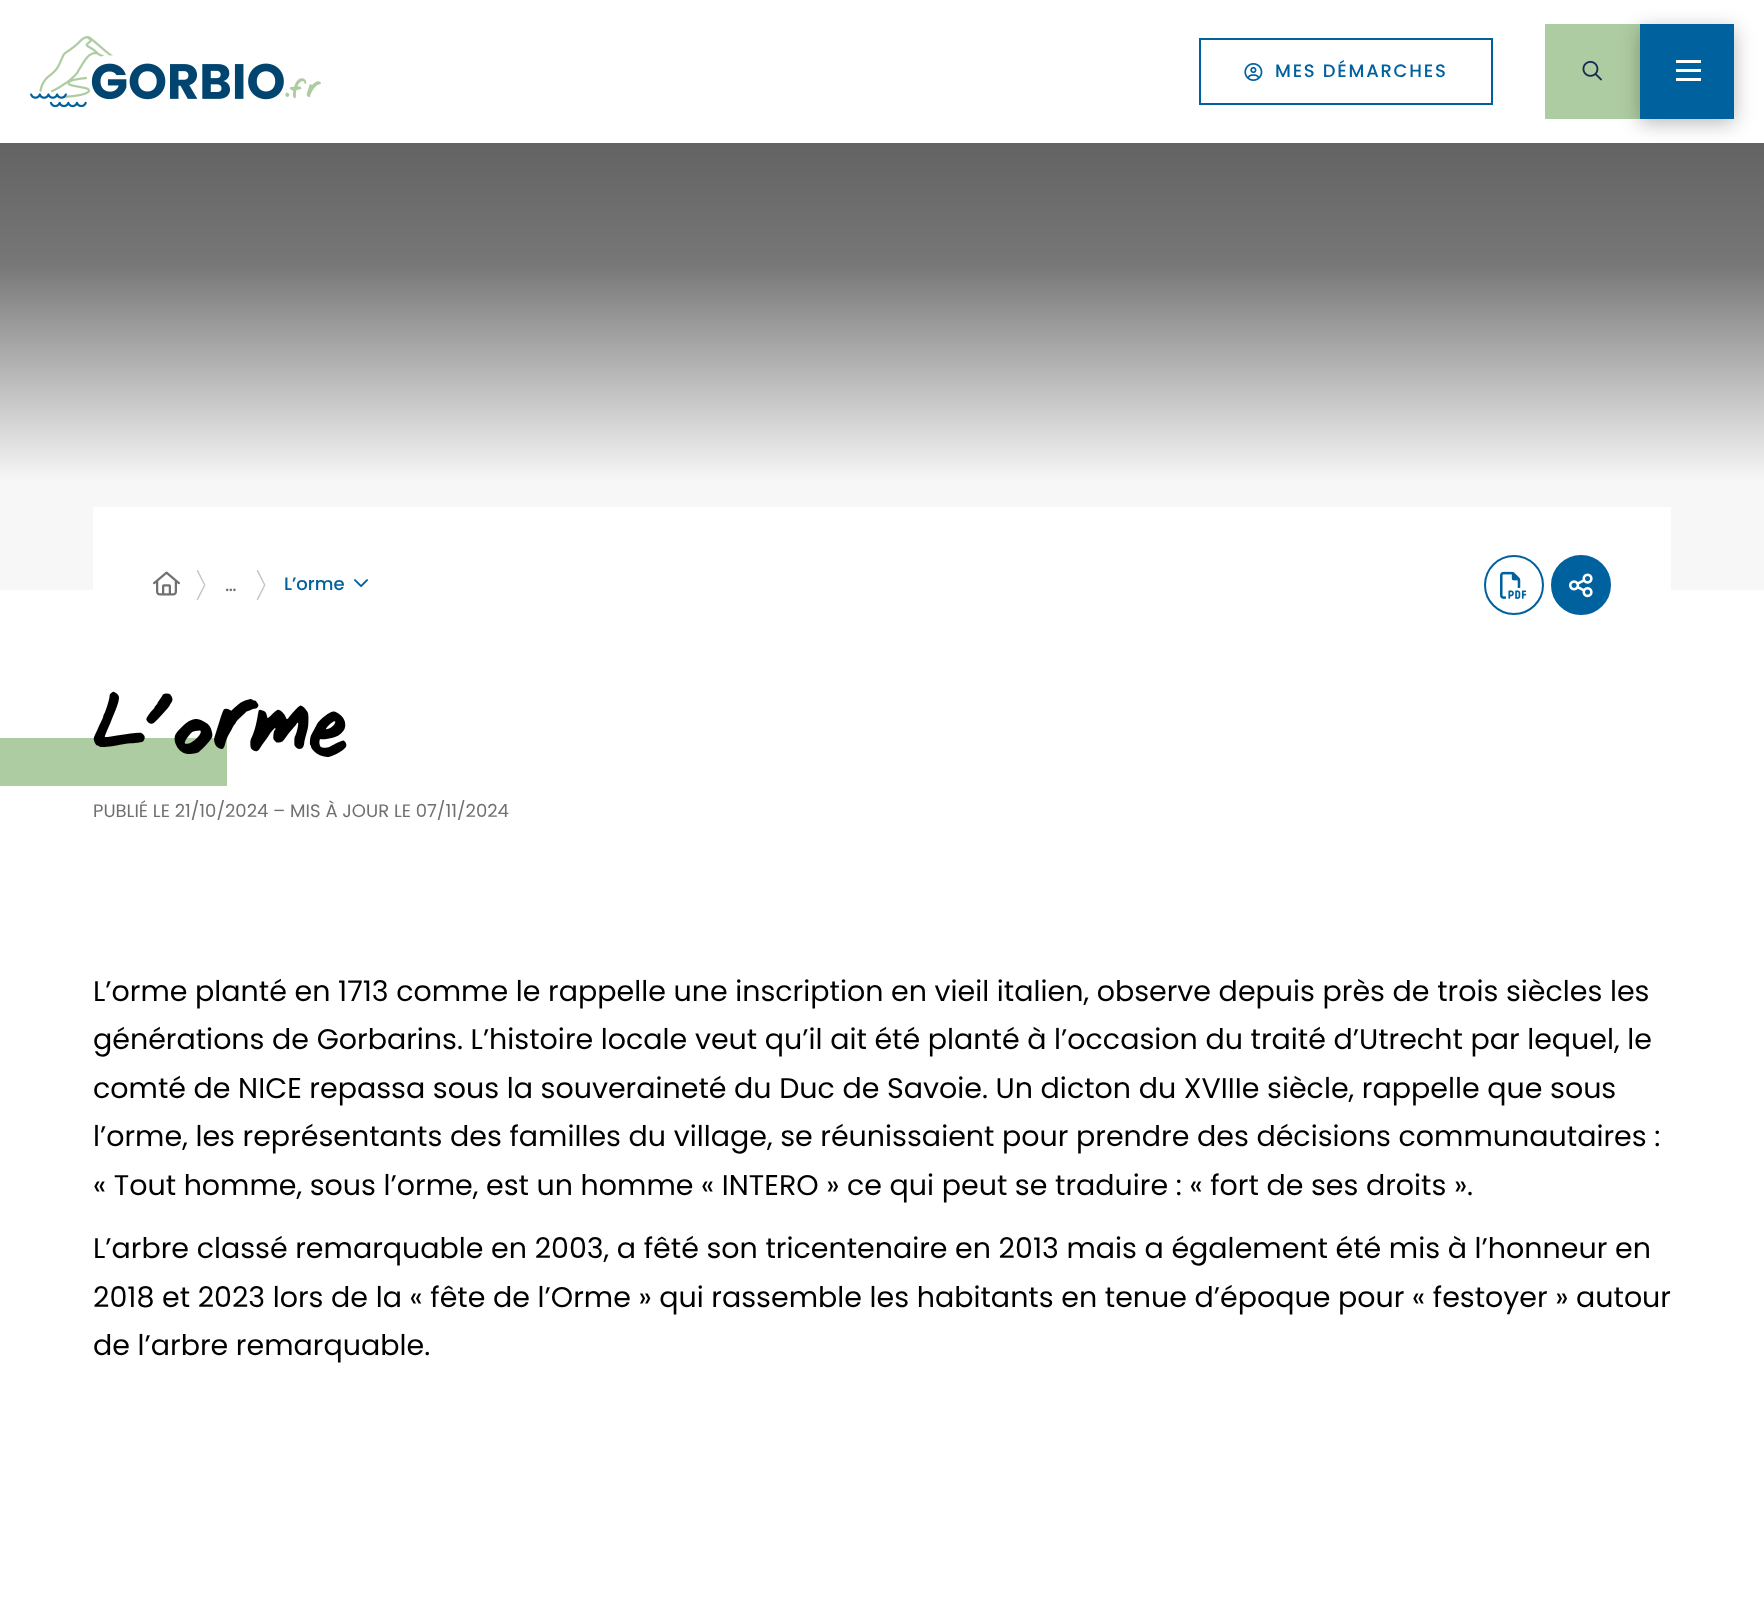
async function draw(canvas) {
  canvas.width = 1764;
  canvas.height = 1619;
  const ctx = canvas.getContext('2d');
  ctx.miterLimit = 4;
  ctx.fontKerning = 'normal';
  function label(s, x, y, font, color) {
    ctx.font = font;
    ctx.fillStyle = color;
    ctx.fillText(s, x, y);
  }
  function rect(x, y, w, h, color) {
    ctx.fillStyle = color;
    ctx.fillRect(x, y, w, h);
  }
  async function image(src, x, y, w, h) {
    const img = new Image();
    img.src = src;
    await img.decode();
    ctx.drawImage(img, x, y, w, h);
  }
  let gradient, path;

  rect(0, 0, 1764, 1619, '#fff');
  await image('assets/img1.png', 30, 36, 291, 71);
  ctx.strokeStyle = '#00619f';
  ctx.lineWidth = 2;
  ctx.strokeRect(1200, 39, 292, 65);
  await image('assets/img2.png', 1244, 63, 19, 18);
  ctx.letterSpacing = '1.75px';
  label('MES DÉMARCHES', 1275, 77, '500 18px Poppins', '#00619f');
  rect(1545, 24, 95, 95, '#aecca1');
  await image('assets/img3.png', 1582, 60, 20, 21);
  gradient = ctx.createLinearGradient(882, 482, 882, 143);
  gradient.addColorStop(0, '#f7f7f7');
  gradient.addColorStop(0.64, '#777');
  gradient.addColorStop(1, '#636363');
  ctx.fillStyle = gradient;
  ctx.fillRect(0, 143, 1764, 339);
  ctx.fillStyle = '#00000047';
  ctx.filter = 'blur(10px)';
  ctx.beginPath();
  ctx.rect(1640, 29, 94, 94);
  ctx.fill();
  ctx.filter = 'none';
  rect(1640, 24, 94, 95, '#00619f');
  rect(1676, 60, 25, 3, '#fff');
  rect(1676, 69, 25, 3, '#fff');
  rect(1676, 78, 25, 3, '#fff');
  rect(0, 482, 1764, 108, '#f7f7f7');
  rect(93, 507, 1578, 83, '#fff');
  await image('assets/img4.png', 153, 571, 27, 25);
  ctx.fillStyle = '#c5c5c5';
  path = new Path2D('M198 600L196.5 599.5L204 585L196.5 570.5L198 570L205.5 585Z');
  ctx.fill(path);
  ctx.letterSpacing = '0px';
  label('…', 225, 591, '500 18px Poppins', '#707070');
  ctx.fillStyle = '#c5c5c5';
  path = new Path2D('M258 600L256.5 599.5L264 585L256.5 570.5L258 570L265.5 585Z');
  ctx.fill(path);
  label('L’orme', 284, 590, '500 18px Poppins', '#00619f');
  await image('assets/img5.png', 354, 579, 14, 8);
  ctx.beginPath();
  ctx.arc(1514, 585, 29, 0, 2 * Math.PI);
  ctx.stroke();
  await image('assets/img6.png', 1500, 571, 27, 28);
  ctx.beginPath();
  ctx.arc(1581, 585, 29, 0, 2 * Math.PI);
  ctx.fill();
  ctx.stroke();
  await image('assets/img7.png', 1569, 573, 24, 25);
  rect(0, 738, 227, 48, '#aecca1');
  label('L’orme', 93, 756, '82.5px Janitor', '#000');
  label('PUBLIÉ LE 21/10/2024 – MIS À JOUR LE 07/11/2024', 93, 817, '18px Poppins', '#707070');
  label('L’orme planté en 1713 comme le rappelle une inscription en vieil italien, observe depuis près de trois siècles les', 93, 1001, '28.5px Poppins', '#000');
  label('générations de Gorbarins. L’histoire locale veut qu’il ait été planté à l’occasion du traité d’Utrecht par lequel, le', 93, 1049, '28.5px Poppins', '#000');
  label('comté de NICE repassa sous la souveraineté du Duc de Savoie. Un dicton du XVIIIe siècle, rappelle que sous', 93, 1098, '28.5px Poppins', '#000');
  label('l’orme, les représentants des familles du village, se réunissaient pour prendre des décisions communautaires :', 93, 1146, '28.5px Poppins', '#000');
  label('« Tout homme, sous l’orme, est un homme « INTERO » ce qui peut se traduire : « fort de ses droits ».', 93, 1195, '28.5px Poppins', '#000');
  label('L’arbre classé remarquable en 2003, a fêté son tricentenaire en 2013 mais a également été mis à l’honneur en', 93, 1258, '28.5px Poppins', '#000');
  label('2018 et 2023 lors de la « fête de l’Orme » qui rassemble les habitants en tenue d’époque pour « festoyer » autour', 93, 1307, '28.5px Poppins', '#000');
  label('de l’arbre remarquable.', 93, 1355, '28.5px Poppins', '#000');
}

draw(document.querySelector('canvas'));
